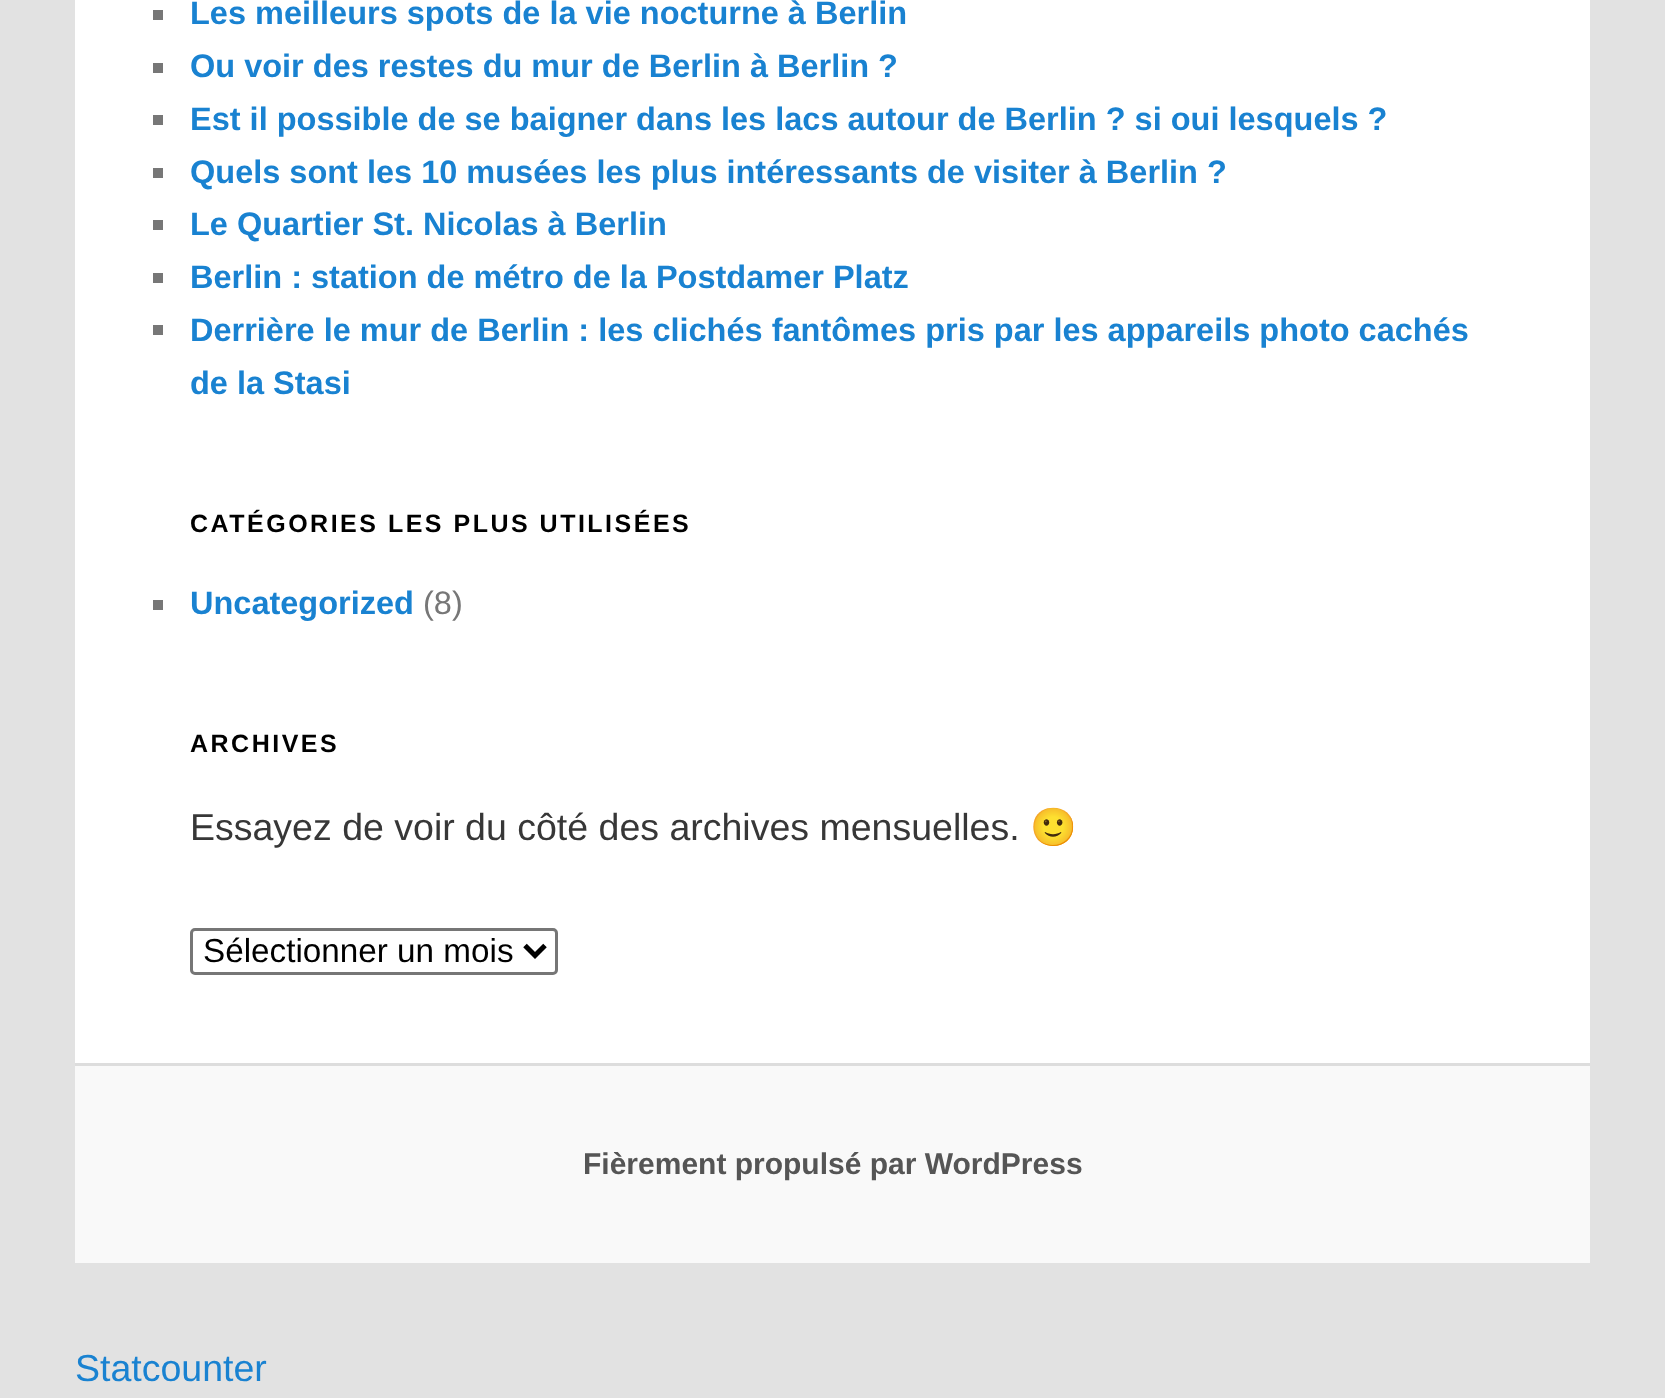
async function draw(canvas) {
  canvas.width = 1665;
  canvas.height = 1398;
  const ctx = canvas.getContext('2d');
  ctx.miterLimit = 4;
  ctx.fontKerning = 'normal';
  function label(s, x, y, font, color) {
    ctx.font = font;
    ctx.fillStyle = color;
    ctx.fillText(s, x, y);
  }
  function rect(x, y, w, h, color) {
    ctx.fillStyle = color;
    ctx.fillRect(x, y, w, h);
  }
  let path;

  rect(0, 0, 1665, 1398, '#e2e2e2');
  rect(75, 0, 1515, 1063, '#fff');
  rect(153, 10, 10, 10, '#777');
  label('Les meilleurs spots de la vie nocturne à Berlin', 190, 24, 'bold 32.5px Liberation Sans', '#1982d1');
  rect(153, 63, 10, 10, '#777');
  label('Ou voir des restes du mur de Berlin à Berlin ?', 190, 77, 'bold 32.5px Liberation Sans', '#1982d1');
  rect(153, 115, 10, 10, '#777');
  label('Est il possible de se baigner dans les lacs autour de Berlin ? si oui lesquels ?', 190, 130, 'bold 32.5px Liberation Sans', '#1982d1');
  rect(153, 168, 10, 10, '#777');
  label('Quels sont les 10 musées les plus intéressants de visiter à Berlin ?', 190, 183, 'bold 32.5px Liberation Sans', '#1982d1');
  rect(153, 220, 10, 10, '#777');
  label('Le Quartier St. Nicolas à Berlin', 190, 235, 'bold 32.5px Liberation Sans', '#1982d1');
  rect(153, 273, 10, 10, '#777');
  label('Berlin : station de métro de la Postdamer Platz', 190, 288, 'bold 32.5px Liberation Sans', '#1982d1');
  rect(153, 325, 10, 10, '#777');
  label('Derrière le mur de Berlin : les clichés fantômes pris par les appareils photo cachés', 190, 341, 'bold 32.5px Liberation Sans', '#1982d1');
  label('de la Stasi', 190, 394, 'bold 32.5px Liberation Sans', '#1982d1');
  ctx.letterSpacing = '2.5px';
  label('CATÉGORIES LES PLUS UTILISÉES', 190, 532, 'bold 25px Liberation Sans', '#000');
  rect(153, 600, 10, 10, '#777');
  ctx.letterSpacing = '0px';
  label('Uncategorized', 190, 614, 'bold 32.5px Liberation Sans', '#1982d1');
  label('(8)', 423, 614, '32.5px Liberation Sans', '#777');
  ctx.letterSpacing = '2.5px';
  label('ARCHIVES', 190, 752, 'bold 25px Liberation Sans', '#000');
  ctx.letterSpacing = '0px';
  label('Essayez de voir du côté des archives mensuelles.', 190, 840, '37.5px Liberation Sans', '#373737');
  label('🙂', 1030, 840, '37.5px Noto Color Emoji', '#373737');
  ctx.beginPath();
  ctx.roundRect(191.5, 929.5, 365, 44, 3.5);
  ctx.strokeStyle = '#767676';
  ctx.lineWidth = 3;
  ctx.stroke();
  path = new Path2D('M525 945.5L535 955.5L545 945.5');
  ctx.strokeStyle = '#000';
  ctx.lineWidth = 5;
  ctx.stroke(path);
  label('Sélectionner un mois', 203, 962, '33.25px Liberation Sans', '#000');
  rect(75, 1066, 1515, 197, '#f9f9f9');
  rect(75, 1063, 1515, 3, '#ddd');
  label('Fièrement propulsé par WordPress', 583, 1174, 'bold 30px Liberation Sans', '#555');
  label('Statcounter', 75, 1381, '37.5px Liberation Sans', '#1982d1');
}

draw(document.querySelector('canvas'));
